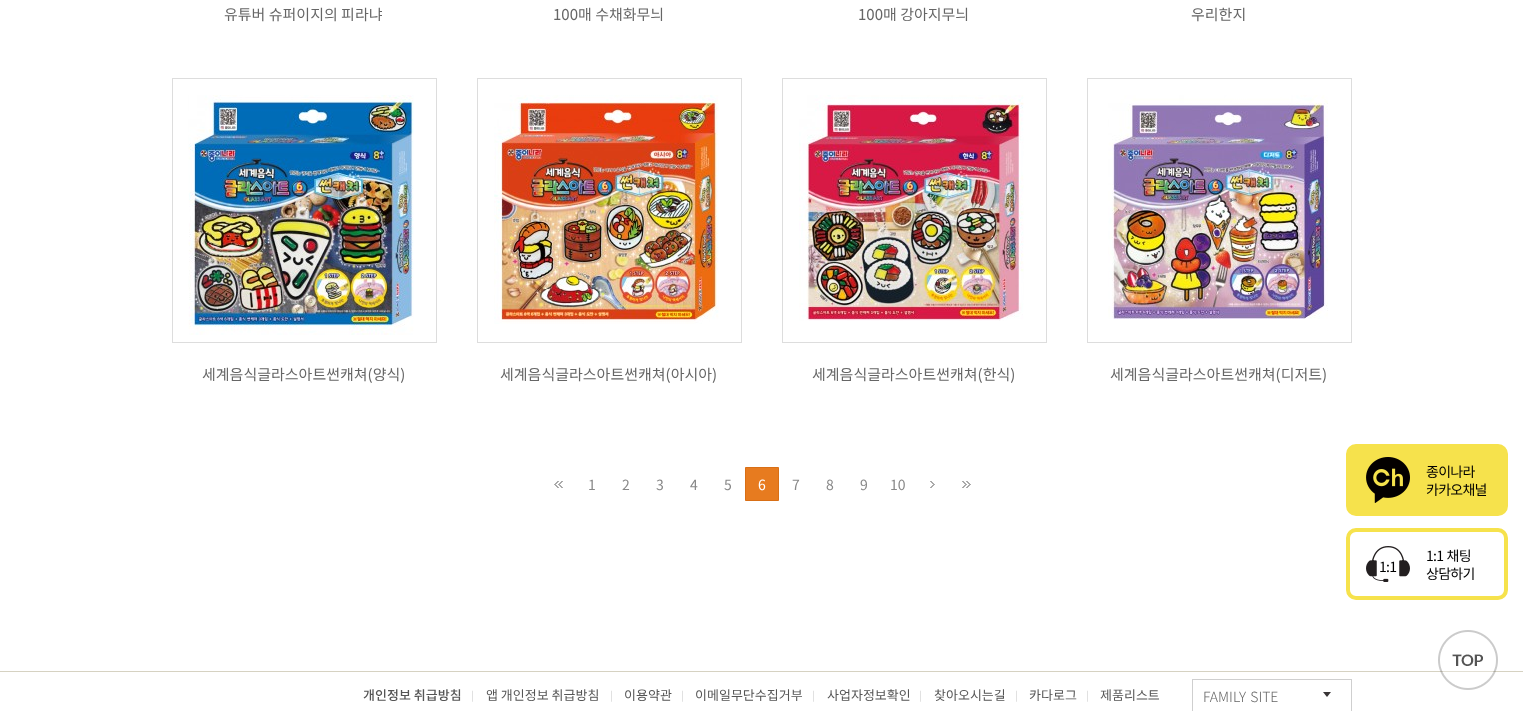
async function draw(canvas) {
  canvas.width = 1523;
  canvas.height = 711;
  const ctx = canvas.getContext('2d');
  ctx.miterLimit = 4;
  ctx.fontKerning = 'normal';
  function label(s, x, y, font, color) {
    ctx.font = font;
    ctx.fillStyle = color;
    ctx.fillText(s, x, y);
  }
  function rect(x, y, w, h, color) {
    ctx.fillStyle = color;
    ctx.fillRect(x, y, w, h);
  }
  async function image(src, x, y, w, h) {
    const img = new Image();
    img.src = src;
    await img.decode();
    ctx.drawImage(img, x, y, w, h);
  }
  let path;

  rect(0, 0, 1523, 711, '#fff');
  label('유튜버 슈퍼이지의 피라냐', 224, 20, '15px Noto Sans KR', '#666');
  label('100매 수채화무늬', 553, 20, '15px Noto Sans KR', '#666');
  label('100매 강아지무늬', 858, 20, '15px Noto Sans KR', '#666');
  label('우리한지', 1191, 20, '15px Noto Sans KR', '#666');
  ctx.strokeStyle = '#ddd';
  ctx.strokeRect(172.5, 78.5, 264, 264);
  await image('assets/img1.png', 188, 95, 226, 240);
  label('세계음식글라스아트썬캐쳐(양식)', 202, 380, '15px Noto Sans KR', '#666');
  ctx.strokeRect(477.5, 78.5, 264, 264);
  await image('assets/img2.png', 494, 95, 225, 229);
  label('세계음식글라스아트썬캐쳐(아시아)', 500, 380, '15px Noto Sans KR', '#666');
  ctx.strokeRect(782.5, 78.5, 264, 264);
  await image('assets/img3.png', 799, 95, 225, 226);
  label('세계음식글라스아트썬캐쳐(한식)', 812, 380, '15px Noto Sans KR', '#666');
  ctx.strokeRect(1087.5, 78.5, 264, 264);
  await image('assets/img4.png', 1108, 95, 220, 224);
  label('세계음식글라스아트썬캐쳐(디저트)', 1110, 380, '15px Noto Sans KR', '#666');
  await image('assets/img5.png', 554, 481, 9, 7);
  label('1', 588, 490, '14px Noto Sans KR', '#888');
  label('2', 622, 490, '14px Noto Sans KR', '#888');
  label('3', 656, 490, '14px Noto Sans KR', '#888');
  label('4', 690, 490, '14px Noto Sans KR', '#888');
  label('5', 724, 490, '14px Noto Sans KR', '#888');
  ctx.fillStyle = '#e77b1f';
  ctx.beginPath();
  ctx.rect(745.5, 467.5, 33, 33);
  ctx.fill();
  ctx.strokeStyle = '#d86f16';
  ctx.stroke();
  label('6', 758, 490, '14px Noto Sans KR', '#fff');
  label('7', 792, 490, '14px Noto Sans KR', '#888');
  label('8', 826, 490, '14px Noto Sans KR', '#888');
  label('9', 860, 490, '14px Noto Sans KR', '#888');
  label('10', 890, 490, '14px Noto Sans KR', '#888');
  await image('assets/img6.png', 930, 481, 5, 7);
  await image('assets/img7.png', 962, 481, 9, 7);
  ctx.fillStyle = '#f6e24c';
  ctx.beginPath();
  ctx.roundRect(1348, 446, 158, 68, 8);
  ctx.fill();
  ctx.strokeStyle = '#f6e24c';
  ctx.lineWidth = 4;
  ctx.stroke();
  await image('assets/img8.png', 1366, 457, 44, 46);
  ctx.letterSpacing = '-0.75px';
  label('종이나라', 1426, 477, '14px Noto Sans KR', '#000');
  label('카카오채널', 1426, 495, '14px Noto Sans KR', '#000');
  ctx.beginPath();
  ctx.roundRect(1348, 530, 158, 68, 8);
  ctx.stroke();
  ctx.wordSpacing = '1px';
  label('1:1 채팅', 1426, 561, '14px Noto Sans KR', '#000');
  await image('assets/img9.png', 1366, 546, 44, 36);
  ctx.wordSpacing = '0px';
  label('1:1', 1379, 572, '14px Noto Sans KR', '#000');
  label('상담하기', 1426, 579, '14px Noto Sans KR', '#000');
  rect(0, 671, 1523, 1, '#d6d2c2');
  await image('assets/img10.png', 1438, 630, 60, 60);
  ctx.letterSpacing = '0px';
  label('개인정보 취급방침', 363, 700, '500 13px Noto Sans KR', '#555');
  label('|', 471, 699, '10px Noto Sans KR', '#d3d3d3');
  label('앱 개인정보 취급방침', 486, 700, '13px Noto Sans KR', '#555');
  label('|', 610, 699, '10px Noto Sans KR', '#d3d3d3');
  label('이용약관', 624, 700, '13px Noto Sans KR', '#555');
  label('|', 681, 699, '10px Noto Sans KR', '#d3d3d3');
  label('이메일무단수집거부', 695, 700, '13px Noto Sans KR', '#555');
  label('|', 812, 699, '10px Noto Sans KR', '#d3d3d3');
  label('사업자정보확인', 827, 700, '13px Noto Sans KR', '#555');
  label('|', 919, 699, '10px Noto Sans KR', '#d3d3d3');
  label('찾아오시는길', 934, 700, '13px Noto Sans KR', '#555');
  label('|', 1015, 699, '10px Noto Sans KR', '#d3d3d3');
  label('카다로그', 1029, 700, '13px Noto Sans KR', '#555');
  label('|', 1086, 699, '10px Noto Sans KR', '#d3d3d3');
  label('제품리스트', 1100, 700, '13px Noto Sans KR', '#555');
  ctx.strokeStyle = '#cfcfcf';
  ctx.lineWidth = 1;
  ctx.strokeRect(1192.5, 679.5, 159, 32);
  ctx.wordSpacing = '1px';
  label('FAMILY SITE', 1203, 702, '300 14px Noto Sans KR', '#666');
  ctx.fillStyle = '#393536';
  path = new Path2D('M1323 692H1331L1327 697Z');
  ctx.fill(path);
}

draw(document.querySelector('canvas'));
